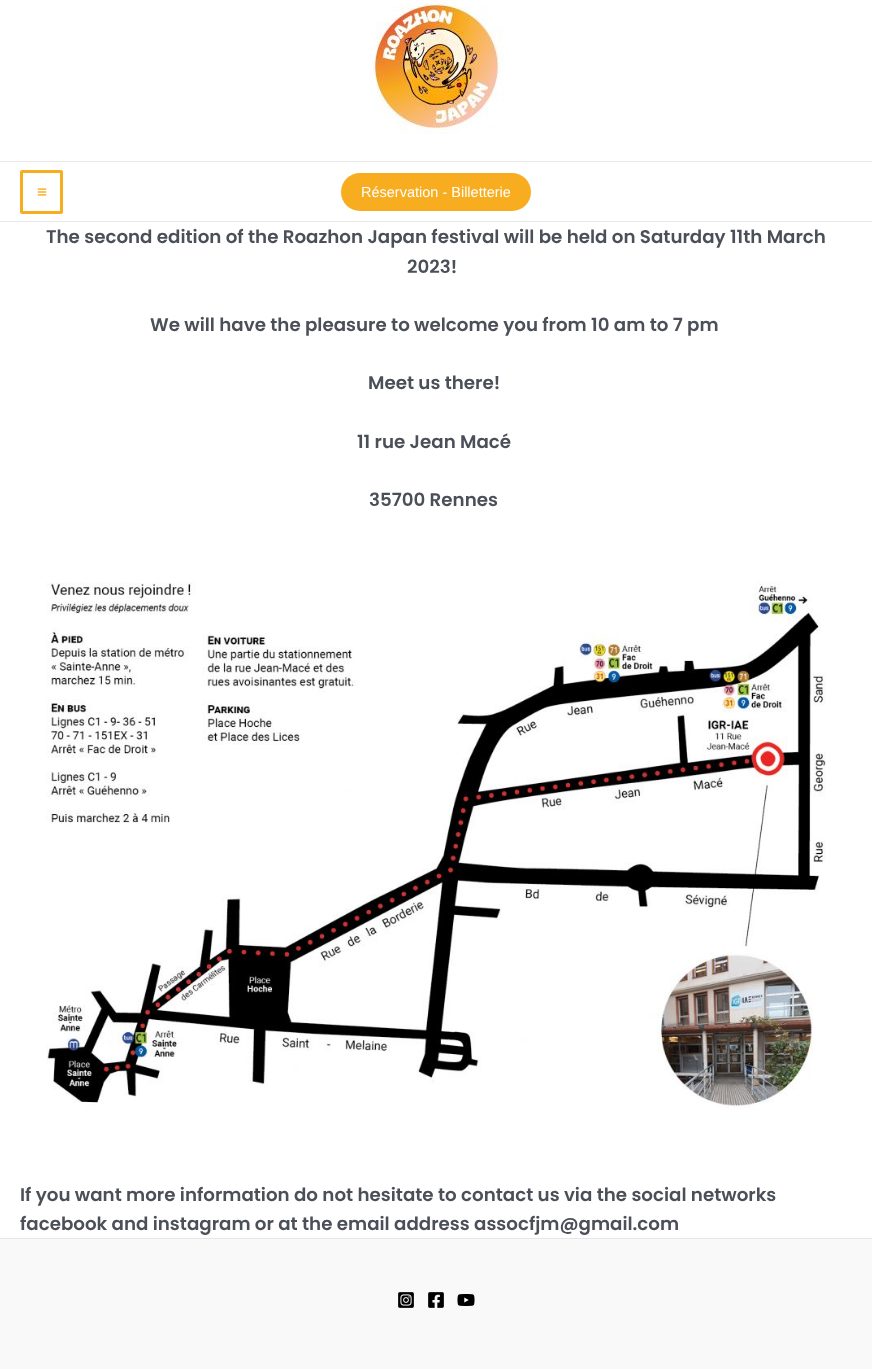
async function draw(canvas) {
  canvas.width = 872;
  canvas.height = 1369;
  const ctx = canvas.getContext('2d');
  ctx.miterLimit = 4;
  ctx.fontKerning = 'normal';
  function label(s, x, y, font, color) {
    ctx.font = font;
    ctx.fillStyle = color;
    ctx.fillText(s, x, y);
  }
  function rect(x, y, w, h, color) {
    ctx.fillStyle = color;
    ctx.fillRect(x, y, w, h);
  }
  function roundedRect(x, y, w, h, r, color) {
    ctx.fillStyle = color;
    ctx.beginPath();
    ctx.roundRect(x, y, w, h, r);
    ctx.fill();
  }
  async function image(src, x, y, w, h) {
    const img = new Image();
    img.src = src;
    await img.decode();
    ctx.drawImage(img, x, y, w, h);
  }

  rect(0, 0, 872, 1369, '#fff');
  rect(0, 161, 872, 1, '#eaeaea');
  await image('assets/img1.png', 369, 0, 135, 134);
  rect(0, 221, 872, 1, '#eaeaea');
  ctx.beginPath();
  ctx.roundRect(21.5, 171.5, 40, 41, 0.5);
  ctx.strokeStyle = '#f8ad20';
  ctx.lineWidth = 3;
  ctx.stroke();
  await image('assets/img2.png', 37, 188, 10, 8);
  roundedRect(341, 173, 190, 38, 19, '#f8ad20');
  label('Réservation - Billetterie', 361, 197, '14.5px Liberation Sans', '#fff');
  label('The second edition of the Roazhon Japan festival will be held on Saturday 11th March', 46, 243, '600 18.25px Poppins', '#4b4f58');
  label('2023!', 407, 273, '600 18.25px Poppins', '#4b4f58');
  label('We will have the pleasure to welcome you from 10 am to 7 pm', 150, 331, '600 18.25px Poppins', '#4b4f58');
  label('Meet us there!', 368, 389, '600 18.25px Poppins', '#4b4f58');
  label('11 rue Jean Macé', 357, 448, '600 18.25px Poppins', '#4b4f58');
  label('35700 Rennes', 369, 506, '600 18.25px Poppins', '#4b4f58');
  await image('assets/img3.png', 46, 582, 780, 528);
  label('If you want more information do not hesitate to contact us via the social networks', 20, 1201, '600 18.25px Poppins', '#4b4f58');
  label('facebook and instagram or at the email address assocfjm@gmail.com', 20, 1230, '600 18.25px Poppins', '#4b4f58');
  rect(0, 1239, 872, 130, '#f9f9f9');
  rect(0, 1238, 872, 1, '#e6e6e6');
  await image('assets/img4.png', 398, 1292, 16, 16);
  await image('assets/img5.png', 428, 1292, 16, 16);
  await image('assets/img6.png', 457, 1294, 18, 12);
}

draw(document.querySelector('canvas'));
